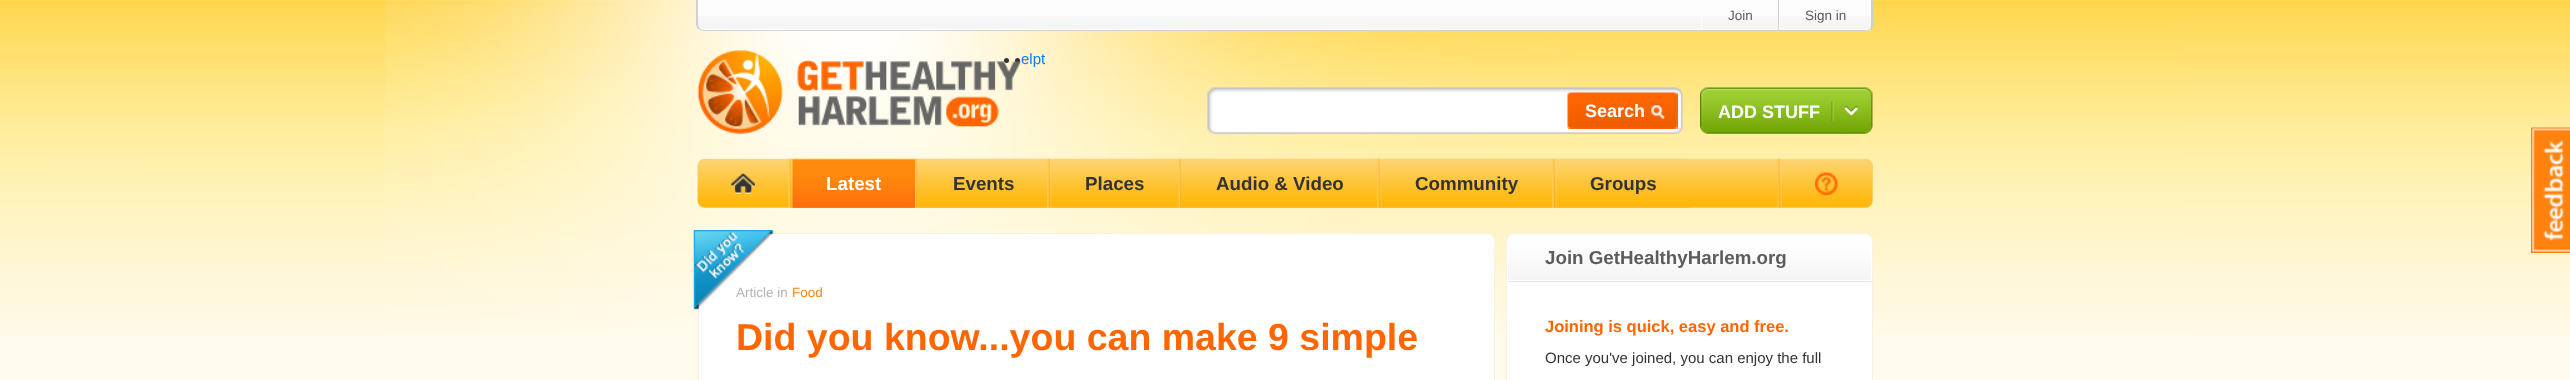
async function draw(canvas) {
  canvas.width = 2570;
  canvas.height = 380;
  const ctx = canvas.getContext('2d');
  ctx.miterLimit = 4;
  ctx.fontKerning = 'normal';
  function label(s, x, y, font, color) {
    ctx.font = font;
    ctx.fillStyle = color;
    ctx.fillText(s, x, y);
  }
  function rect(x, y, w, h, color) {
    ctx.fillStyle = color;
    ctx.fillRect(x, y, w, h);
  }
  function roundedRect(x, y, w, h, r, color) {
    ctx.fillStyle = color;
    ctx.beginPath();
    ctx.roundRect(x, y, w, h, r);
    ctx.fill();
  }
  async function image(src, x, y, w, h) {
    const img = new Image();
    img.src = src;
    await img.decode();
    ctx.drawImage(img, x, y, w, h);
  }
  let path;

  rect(0, 0, 2570, 380, '#fffaeb');
  await image('assets/img1.png', 0, 0, 2570, 332);
  await image('assets/img2.png', 385, 0, 1800, 333);
  ctx.fillStyle = '#fdfdfd';
  ctx.beginPath();
  ctx.roundRect(696, 0, 1178, 31, [0, 0, 8, 8]);
  ctx.fill();
  await image('assets/img3.png', 696, 16, 1178, 16);
  ctx.fillStyle = '#d0d0d0';
  path = new Path2D('M696 0H1874V24C1874 28 1870 31 1866 31H704C700 31 696 28 696 24ZM698 0H1872V24C1872 27 1870 30 1866 30H704C700 30 698 27 698 24Z');
  ctx.fill(path, 'evenodd');
  rect(1778, 0, 1, 30, '#d0d0d0');
  rect(1701, 16, 1, 14, '#fff');
  label('Join', 1728, 20, '13.5px Liberation Sans', '#5c5c5c');
  rect(1871, 0, 1, 30, '#d0d0d0');
  rect(1779, 16, 1, 14, '#fff');
  label('Sign in', 1805, 20, '13.5px Liberation Sans', '#5c5c5c');
  ctx.fillStyle = '#333';
  ctx.beginPath();
  ctx.arc(1006.5, 60.5, 2.5, 0, 2 * Math.PI);
  ctx.fill();
  label('elpt', 1021, 64, '15px Liberation Sans', '#007eff');
  ctx.fillStyle = '#333';
  ctx.beginPath();
  ctx.arc(1017.5, 60.5, 2.5, 0, 2 * Math.PI);
  ctx.fill();
  await image('assets/img4.png', 697, 50, 325, 84);
  await image('assets/img5.png', 1207, 87, 476, 47);
  rect(1213, 93, 2, 2, '#fff');
  rect(1568, 93, 110, 36, '#f60');
  await image('assets/img6.png', 1567, 92, 111, 37);
  label('Search', 1585, 117, 'bold 18px Liberation Sans', '#fff');
  await image('assets/img7.png', 1700, 87, 173, 47);
  label('ADD STUFF', 1718, 118, 'bold 18px Liberation Sans', '#fff');
  roundedRect(698, 159, 1175, 49, 8, '#fdd471');
  await image('assets/img8.png', 697, 158, 1176, 50);
  ctx.beginPath();
  ctx.roundRect(698, 159, 91, 49, [8, 0, 0, 8]);
  ctx.fill();
  await image('assets/img9.png', 697, 158, 92, 50);
  await image('assets/img10.png', 731, 173, 24, 21);
  await image('assets/img11.png', 788, 158, 5, 50);
  rect(793, 207, 122, 1, '#ff8a0c');
  await image('assets/img12.png', 792, 158, 123, 50);
  label('Latest', 826, 190, 'bold 18.75px Liberation Sans', '#fff');
  await image('assets/img13.png', 915, 158, 4, 50);
  rect(919, 161, 129, 47, '#fdd471');
  await image('assets/img14.png', 918, 158, 130, 50);
  label('Events', 953, 190, 'bold 18.75px Liberation Sans', '#333');
  await image('assets/img15.png', 1047, 158, 5, 50);
  rect(1051, 159, 128, 49, '#fdd471');
  await image('assets/img16.png', 1051, 158, 128, 50);
  label('Places', 1085, 190, 'bold 18.75px Liberation Sans', '#333');
  await image('assets/img17.png', 1178, 158, 5, 50);
  rect(1183, 161, 195, 47, '#fdd471');
  await image('assets/img18.png', 1182, 158, 196, 50);
  label('Audio & Video', 1216, 190, 'bold 18.75px Liberation Sans', '#333');
  await image('assets/img19.png', 1377, 158, 5, 50);
  rect(1381, 159, 172, 49, '#fdd471');
  await image('assets/img20.png', 1381, 158, 172, 50);
  label('Community', 1415, 190, 'bold 18.75px Liberation Sans', '#333');
  await image('assets/img21.png', 1552, 158, 5, 50);
  rect(1556, 159, 134, 49, '#fdd471');
  await image('assets/img22.png', 1556, 158, 134, 50);
  label('Groups', 1590, 190, 'bold 18.75px Liberation Sans', '#333');
  await image('assets/img23.png', 1777, 158, 5, 50);
  ctx.fillStyle = '#fdd471';
  ctx.beginPath();
  ctx.roundRect(1781, 159, 92, 49, [0, 8, 8, 0]);
  ctx.fill();
  await image('assets/img24.png', 1781, 159, 92, 49);
  await image('assets/img25.png', 1815, 172, 23, 24);
  rect(2531, 128, 39, 125, '#ff820f');
  await image('assets/img26.png', 2531, 127, 39, 125);
  ctx.fillStyle = '#fff';
  ctx.beginPath();
  ctx.roundRect(698.5, 233.5, 796, 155, 7.5);
  ctx.fill();
  ctx.strokeStyle = '#f7f2e4';
  ctx.stroke();
  label('Article in', 736, 297, '13.5px Liberation Sans', '#b3b3b3');
  await image('assets/img27.png', 693, 230, 82, 80);
  label('Food', 792, 297, '13.5px Liberation Sans', '#ff830c');
  label('Did you know...you can make 9 simple', 736, 350, 'bold 37.5px Liberation Sans', '#f60');
  ctx.fillStyle = '#fff';
  ctx.beginPath();
  ctx.roundRect(1506.5, 233.5, 366, 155, 7.5);
  ctx.fill();
  ctx.stroke();
  await image('assets/img28.png', 1508, 234, 363, 46);
  rect(1508, 281, 363, 1, '#e5e5e5');
  label('Join GetHealthyHarlem.org', 1545, 264, 'bold 18.75px Liberation Sans', '#5c5c5c');
  label('Joining is quick, easy and free.', 1545, 332, 'bold 16.5px Liberation Sans', '#f60');
  label('Once you\'ve joined, you can enjoy the full', 1545, 363, '15px Liberation Sans', '#333');
}

draw(document.querySelector('canvas'));
